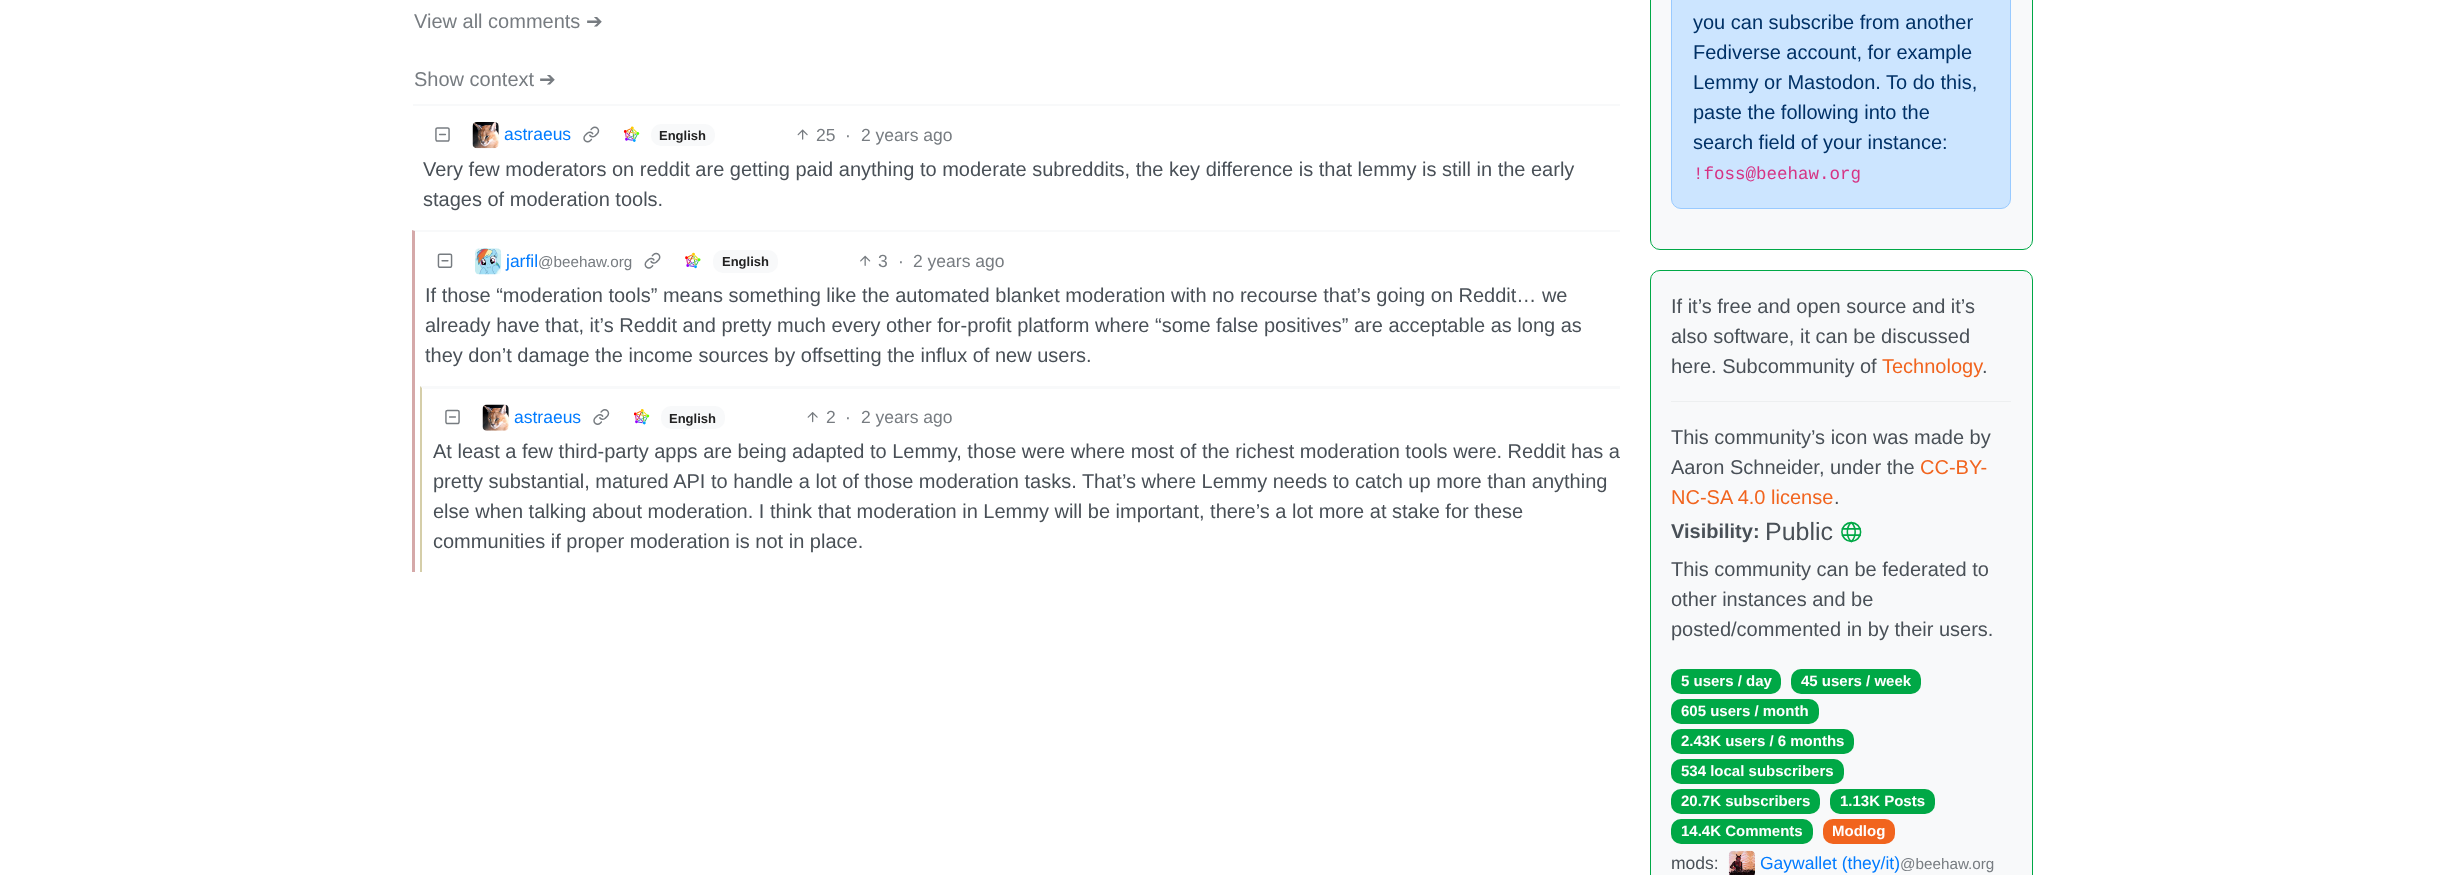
async function draw(canvas) {
  canvas.width = 2445;
  canvas.height = 875;
  const ctx = canvas.getContext('2d');
  ctx.miterLimit = 4;
  ctx.fontKerning = 'normal';
  function label(s, x, y, font, color) {
    ctx.font = font;
    ctx.fillStyle = color;
    ctx.fillText(s, x, y);
  }
  function rect(x, y, w, h, color) {
    ctx.fillStyle = color;
    ctx.fillRect(x, y, w, h);
  }
  function roundedRect(x, y, w, h, r, color) {
    ctx.fillStyle = color;
    ctx.beginPath();
    ctx.roundRect(x, y, w, h, r);
    ctx.fill();
  }
  async function image(src, x, y, w, h) {
    const img = new Image();
    img.src = src;
    await img.decode();
    ctx.drawImage(img, x, y, w, h);
  }
  let path;

  rect(0, 0, 2445, 875, '#fff');
  label('View all comments', 414, 28, '20px Liberation Sans', '#777c81');
  label('➔', 586, 28, '20px DejaVu Sans', '#777c81');
  label('Show context', 414, 86, '20px Liberation Sans', '#777c81');
  label('➔', 539, 86, '20px DejaVu Sans', '#777c81');
  rect(413, 104, 1207, 2, '#f8f9fa');
  await image('assets/img1.png', 435, 127, 15, 15);
  await image('assets/img2.png', 472, 122, 27, 27);
  label('astraeus', 504, 140, '17.5px Liberation Sans', '#007bff');
  await image('assets/img3.png', 583, 126, 17, 17);
  await image('assets/img4.png', 623, 126, 17, 16);
  roundedRect(651, 124, 64, 22, 10, '#f8f9fa');
  label('English', 659, 140, 'bold 13px Liberation Sans', '#222');
  await image('assets/img5.png', 797, 129, 11, 11);
  label('25', 816, 141, '17.5px Liberation Sans', '#777c81');
  label('·', 845, 141, '17.5px Liberation Sans', '#777c81');
  label('2 years ago', 861, 141, '17.5px Liberation Sans', '#777c81');
  label('Very few moderators on reddit are getting paid anything to moderate subreddits, the key difference is that lemmy is still in the early', 423, 176, '20px Liberation Sans', '#495057');
  label('stages of moderation tools.', 423, 206, '20px Liberation Sans', '#495057');
  ctx.fillStyle = '#f8f9fa';
  path = new Path2D('M412 230H1620V231H415Z');
  ctx.fill(path);
  ctx.fillStyle = '#ac535380';
  path = new Path2D('M412 572V230L415 231V572Z');
  ctx.fill(path);
  rect(415, 231, 1205, 1, '#f8f9fa');
  await image('assets/img6.png', 437, 253, 16, 15);
  await image('assets/img7.png', 475, 248, 27, 27);
  label('jarfil', 506, 267, '17.5px Liberation Sans', '#007bff');
  label('@beehaw.org', 538, 267, '15.25px Liberation Sans', '#777c81');
  await image('assets/img8.png', 644, 252, 17, 17);
  await image('assets/img9.png', 685, 252, 16, 17);
  roundedRect(713, 250, 65, 23, 10, '#f8f9fa');
  label('English', 722, 266, 'bold 13px Liberation Sans', '#222');
  await image('assets/img10.png', 860, 255, 11, 11);
  label('3', 878, 267, '17.5px Liberation Sans', '#777c81');
  label('·', 898, 267, '17.5px Liberation Sans', '#777c81');
  label('2 years ago', 913, 267, '17.5px Liberation Sans', '#777c81');
  label('If those “moderation tools” means something like the automated blanket moderation with no recourse that’s going on Reddit… we', 425, 302, '20px Liberation Sans', '#495057');
  label('already have that, it’s Reddit and pretty much every other for-profit platform where “some false positives” are acceptable as long as', 425, 332, '20px Liberation Sans', '#495057');
  label('they don’t damage the income sources by offsetting the influx of new users.', 425, 362, '20px Liberation Sans', '#495057');
  ctx.fillStyle = '#f8f9fa';
  path = new Path2D('M420 386H1620V388H422Z');
  ctx.fill(path);
  ctx.fillStyle = '#ac9d5380';
  path = new Path2D('M420 572V386L422 388V572Z');
  ctx.fill(path);
  rect(423, 388, 1197, 1, '#f8f9fa');
  await image('assets/img11.png', 445, 409, 15, 16);
  await image('assets/img12.png', 482, 404, 27, 27);
  label('astraeus', 514, 423, '17.5px Liberation Sans', '#007bff');
  await image('assets/img13.png', 593, 409, 17, 16);
  await image('assets/img14.png', 634, 409, 16, 16);
  roundedRect(661, 406, 64, 23, 10, '#f8f9fa');
  label('English', 669, 423, 'bold 13px Liberation Sans', '#222');
  await image('assets/img15.png', 807, 412, 11, 11);
  label('2', 826, 423, '17.5px Liberation Sans', '#777c81');
  label('·', 845, 423, '17.5px Liberation Sans', '#777c81');
  label('2 years ago', 861, 423, '17.5px Liberation Sans', '#777c81');
  label('At least a few third-party apps are being adapted to Lemmy, those were where most of the richest moderation tools were. Reddit has a', 433, 458, '20px Liberation Sans', '#495057');
  label('pretty substantial, matured API to handle a lot of those moderation tasks. That’s where Lemmy needs to catch up more than anything', 433, 488, '20px Liberation Sans', '#495057');
  label('else when talking about moderation. I think that moderation in Lemmy will be important, there’s a lot more at stake for these', 433, 518, '20px Liberation Sans', '#495057');
  label('communities if proper moderation is not in place.', 433, 548, '20px Liberation Sans', '#495057');
  ctx.fillStyle = '#f8f9fa';
  ctx.beginPath();
  ctx.roundRect(1650.5, -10.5, 382, 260, 9.5);
  ctx.fill();
  ctx.strokeStyle = '#00a846';
  ctx.stroke();
  ctx.fillStyle = '#cce5ff';
  ctx.beginPath();
  ctx.roundRect(1671.5, -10.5, 339, 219, 9.5);
  ctx.fill();
  ctx.strokeStyle = '#99caff';
  ctx.stroke();
  label('you can subscribe from another', 1693, 29, '20px Liberation Sans', '#003166');
  label('Fediverse account, for example', 1693, 59, '20px Liberation Sans', '#003166');
  label('Lemmy or Mastodon. To do this,', 1693, 89, '20px Liberation Sans', '#003166');
  label('paste the following into the', 1693, 119, '20px Liberation Sans', '#003166');
  label('search field of your instance:', 1693, 149, '20px Liberation Sans', '#003166');
  label('!foss@beehaw.org', 1693, 179, '17.5px Liberation Mono', '#d63384');
  ctx.fillStyle = '#f8f9fa';
  ctx.beginPath();
  ctx.roundRect(1650.5, 270.5, 382, 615, 9.5);
  ctx.fill();
  ctx.strokeStyle = '#00a846';
  ctx.stroke();
  label('If it’s free and open source and it’s', 1671, 313, '20px Liberation Sans', '#495057');
  label('also software, it can be discussed', 1671, 343, '20px Liberation Sans', '#495057');
  label('here. Subcommunity of', 1671, 373, '20px Liberation Sans', '#495057');
  label('Technology', 1882, 373, '20px Liberation Sans', '#f1641e');
  label('.', 1982, 373, '20px Liberation Sans', '#495057');
  rect(1671, 401, 340, 1, '#edeff0');
  label('This community’s icon was made by', 1671, 444, '20px Liberation Sans', '#495057');
  label('Aaron Schneider, under the', 1671, 474, '20px Liberation Sans', '#495057');
  label('CC-BY-', 1920, 474, '20px Liberation Sans', '#f1641e');
  label('NC-SA 4.0 license', 1671, 504, '20px Liberation Sans', '#f1641e');
  label('.', 1834, 504, '20px Liberation Sans', '#495057');
  label('Visibility:', 1671, 538, 'bold 20px Liberation Sans', '#495057');
  label('Public', 1765, 540, '25px Liberation Sans', '#495057');
  await image('assets/img16.png', 1841, 521, 21, 22);
  label('This community can be federated to', 1671, 576, '20px Liberation Sans', '#495057');
  label('other instances and be', 1671, 606, '20px Liberation Sans', '#495057');
  label('posted/commented in by their users.', 1671, 636, '20px Liberation Sans', '#495057');
  roundedRect(1671, 669, 110, 25, 10, '#00a846');
  label('5 users / day', 1681, 686, 'bold 15px Liberation Sans', '#fff');
  roundedRect(1791, 669, 130, 25, 10, '#00a846');
  label('45 users / week', 1801, 686, 'bold 15px Liberation Sans', '#fff');
  roundedRect(1671, 699, 148, 25, 10, '#00a846');
  label('605 users / month', 1681, 716, 'bold 15px Liberation Sans', '#fff');
  roundedRect(1671, 729, 183, 25, 10, '#00a846');
  label('2.43K users / 6 months', 1681, 746, 'bold 15px Liberation Sans', '#fff');
  roundedRect(1671, 759, 173, 25, 10, '#00a846');
  label('534 local subscribers', 1681, 776, 'bold 15px Liberation Sans', '#fff');
  roundedRect(1671, 789, 149, 25, 10, '#00a846');
  label('20.7K subscribers', 1681, 806, 'bold 15px Liberation Sans', '#fff');
  roundedRect(1830, 789, 105, 25, 10, '#00a846');
  label('1.13K Posts', 1840, 806, 'bold 15px Liberation Sans', '#fff');
  roundedRect(1671, 819, 142, 25, 10, '#00a846');
  label('14.4K Comments', 1681, 836, 'bold 15px Liberation Sans', '#fff');
  roundedRect(1823, 819, 72, 25, 10, '#f1641e');
  label('Modlog', 1832, 836, 'bold 15px Liberation Sans', '#fff');
  label('mods:', 1671, 869, '17.5px Liberation Sans', '#495057');
  await image('assets/img17.png', 1728, 850, 27, 25);
  label('Gaywallet (they/it)', 1760, 869, '17.5px Liberation Sans', '#007bff');
  label('@beehaw.org', 1900, 869, '15.25px Liberation Sans', '#777c81');
}

draw(document.querySelector('canvas'));
